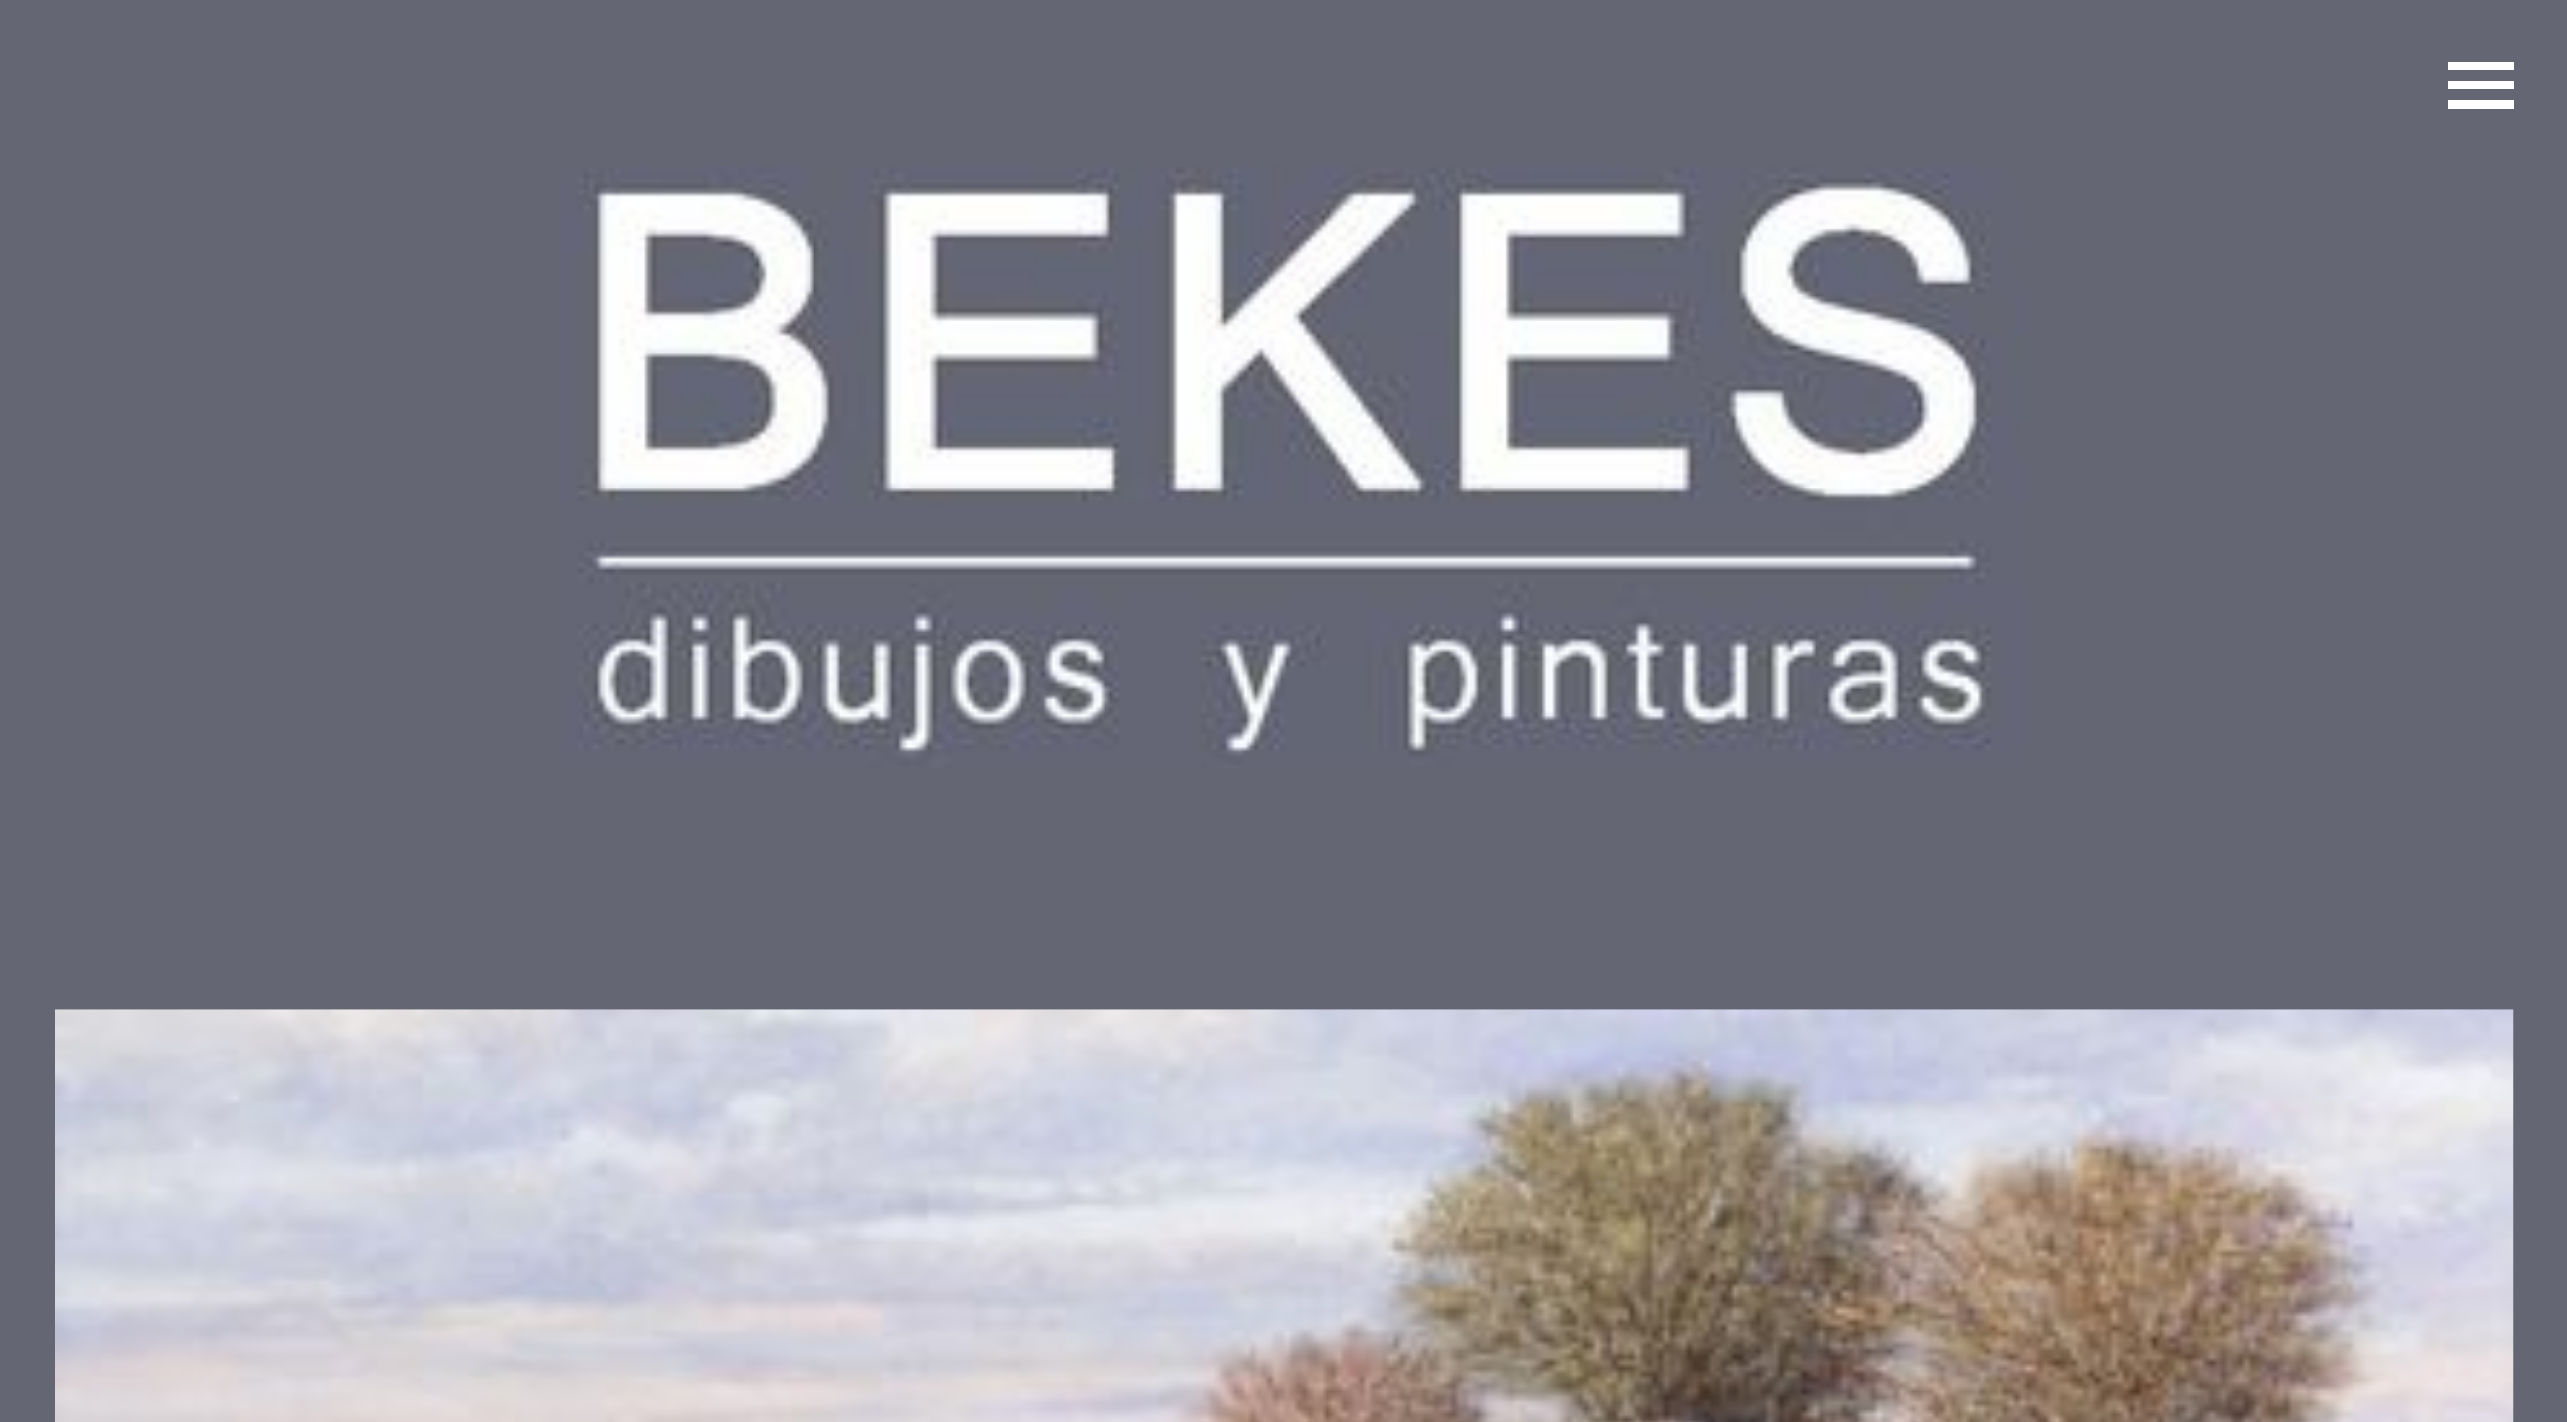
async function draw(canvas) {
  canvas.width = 2567;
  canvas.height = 1422;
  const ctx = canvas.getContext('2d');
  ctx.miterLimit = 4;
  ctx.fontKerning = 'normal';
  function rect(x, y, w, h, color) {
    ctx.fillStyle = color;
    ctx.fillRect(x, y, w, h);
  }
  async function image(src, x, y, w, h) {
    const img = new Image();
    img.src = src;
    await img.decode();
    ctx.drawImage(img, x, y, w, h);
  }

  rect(0, 0, 2567, 1422, '#646673');
  rect(2448, 62, 66, 8, '#fff');
  rect(2448, 81, 66, 8, '#fff');
  rect(2448, 100, 66, 9, '#fff');
  await image('assets/img1.png', 559, 166, 1468, 602);
  await image('assets/img2.png', 55, 1009, 2459, 413);
}

draw(document.querySelector('canvas'));
